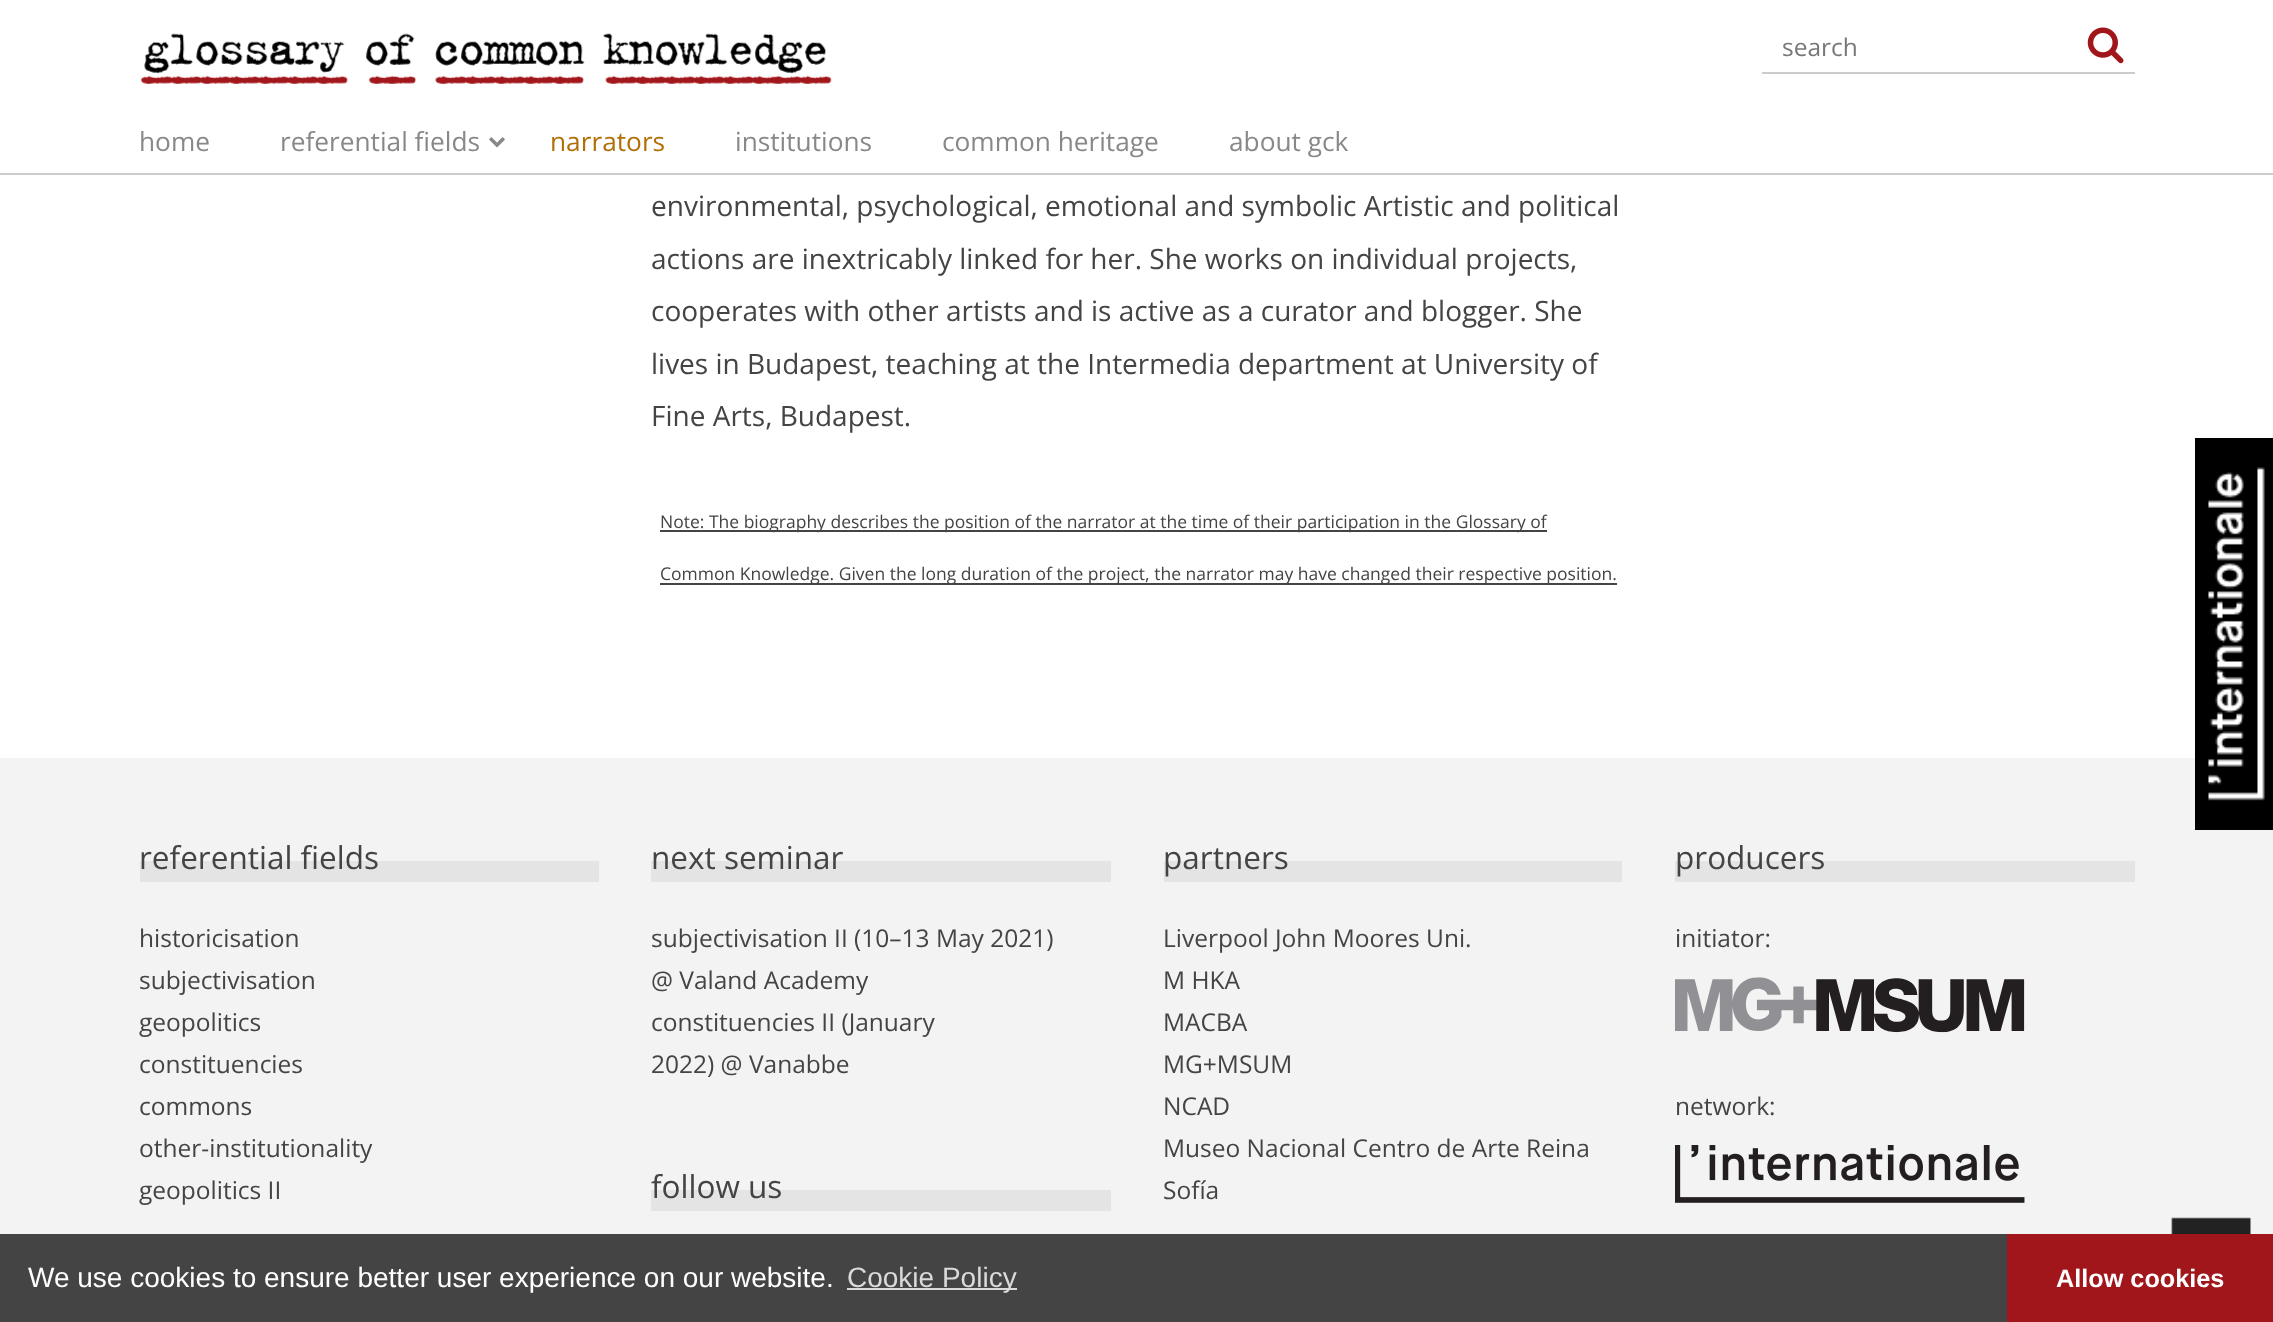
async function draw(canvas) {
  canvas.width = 2273;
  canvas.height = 1322;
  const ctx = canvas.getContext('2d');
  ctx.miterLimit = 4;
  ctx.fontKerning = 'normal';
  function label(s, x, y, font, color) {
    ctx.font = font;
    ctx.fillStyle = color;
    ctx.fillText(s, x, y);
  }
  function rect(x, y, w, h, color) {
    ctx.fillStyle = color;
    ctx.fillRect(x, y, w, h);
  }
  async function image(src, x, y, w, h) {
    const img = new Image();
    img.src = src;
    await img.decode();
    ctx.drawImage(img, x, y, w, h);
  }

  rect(0, 0, 2273, 1322, '#fff');
  rect(0, 173, 2273, 2, '#ccc');
  await image('assets/img1.png', 141, 33, 691, 51);
  rect(1762, 72, 373, 2, '#ccc');
  label('search', 1782, 56, '24.5px Open Sans', '#777');
  await image('assets/img2.png', 2087, 27, 37, 37);
  label('home', 139, 151, '26.25px Open Sans', '#888');
  label('referential fields', 280, 151, '26.25px Open Sans', '#888');
  await image('assets/img3.png', 489, 137, 16, 11);
  label('narrators', 550, 151, '26.25px Open Sans', '#b26f06');
  label('institutions', 735, 151, '26.25px Open Sans', '#888');
  label('common heritage', 942, 151, '26.25px Open Sans', '#888');
  label('about gck', 1229, 151, '26.25px Open Sans', '#888');
  label('environmental, psychological, emotional and symbolic Artistic and political', 651, 216, '28px Open Sans', '#444');
  label('actions are inextricably linked for her. She works on individual projects,', 651, 269, '28px Open Sans', '#444');
  label('cooperates with other artists and is active as a curator and blogger. She', 651, 321, '28px Open Sans', '#444');
  label('lives in Budapest, teaching at the Intermedia department at University of', 651, 374, '28px Open Sans', '#444');
  label('Fine Arts, Budapest.', 651, 426, '28px Open Sans', '#444');
  rect(660, 530, 887, 2, '#444');
  label('Note: The biography describes the position of the narrator at the time of their participation in the Glossary of', 660, 528, '17.5px Open Sans', '#444');
  rect(660, 583, 957, 2, '#444');
  label('Common Knowledge. Given the long duration of the project, the narrator may have changed their respective position.', 660, 580, '17.5px Open Sans', '#444');
  rect(0, 758, 2273, 476, '#f3f3f3');
  rect(2195, 438, 78, 392, '#000');
  await image('assets/img4.png', 2208, 467, 57, 334);
  rect(140, 861, 459, 21, '#e4e4e4');
  label('referential fields', 139, 869, '31.5px Open Sans', '#444');
  label('historicisation', 139, 947, '24.5px Open Sans', '#444');
  label('subjectivisation', 139, 989, '24.5px Open Sans', '#444');
  label('geopolitics', 139, 1031, '24.5px Open Sans', '#444');
  label('constituencies', 139, 1073, '24.5px Open Sans', '#444');
  label('commons', 139, 1115, '24.5px Open Sans', '#444');
  label('other-institutionality', 139, 1157, '24.5px Open Sans', '#444');
  label('geopolitics II', 139, 1199, '24.5px Open Sans', '#444');
  rect(651, 861, 460, 21, '#e4e4e4');
  label('next seminar', 651, 869, '31.5px Open Sans', '#444');
  label('subjectivisation II (10–13 May 2021)', 651, 947, '24.5px Open Sans', '#444');
  label('@ Valand Academy', 651, 989, '24.5px Open Sans', '#444');
  label('constituencies II (January', 651, 1031, '24.5px Open Sans', '#444');
  label('2022) @ Vanabbe', 651, 1073, '24.5px Open Sans', '#444');
  rect(651, 1190, 460, 21, '#e4e4e4');
  label('follow us', 651, 1198, '31.5px Open Sans', '#444');
  rect(1164, 861, 458, 21, '#e4e4e4');
  label('partners', 1163, 869, '31.5px Open Sans', '#444');
  label('Liverpool John Moores Uni.', 1163, 947, '24.5px Open Sans', '#444');
  label('M HKA', 1163, 989, '24.5px Open Sans', '#444');
  label('MACBA', 1163, 1031, '24.5px Open Sans', '#444');
  label('MG+MSUM', 1163, 1073, '24.5px Open Sans', '#444');
  label('NCAD', 1163, 1115, '24.5px Open Sans', '#444');
  label('Museo Nacional Centro de Arte Reina', 1163, 1157, '24.5px Open Sans', '#444');
  label('Sofía', 1163, 1199, '24.5px Open Sans', '#444');
  rect(1675, 861, 460, 21, '#e4e4e4');
  label('producers', 1675, 869, '31.5px Open Sans', '#444');
  label('initiator:', 1675, 947, '24.5px Open Sans', '#444');
  await image('assets/img5.png', 1675, 977, 350, 56);
  label('network:', 1675, 1115, '24.5px Open Sans', '#444');
  await image('assets/img6.png', 1675, 1145, 350, 58);
  await image('assets/img7.png', 2171, 1217, 80, 17);
  rect(0, 1234, 2007, 88, '#444');
  label('We use cookies to ensure better user experience on our website.', 28, 1287, '28px Liberation Sans', '#fff');
  rect(847, 1288, 170, 2, '#dadada');
  label('Cookie Policy', 847, 1287, '28px Liberation Sans', '#dadada');
  rect(2007, 1234, 266, 88, '#a0161b');
  label('Allow cookies', 2056, 1287, 'bold 25.25px Liberation Sans', '#fff');
}

draw(document.querySelector('canvas'));
